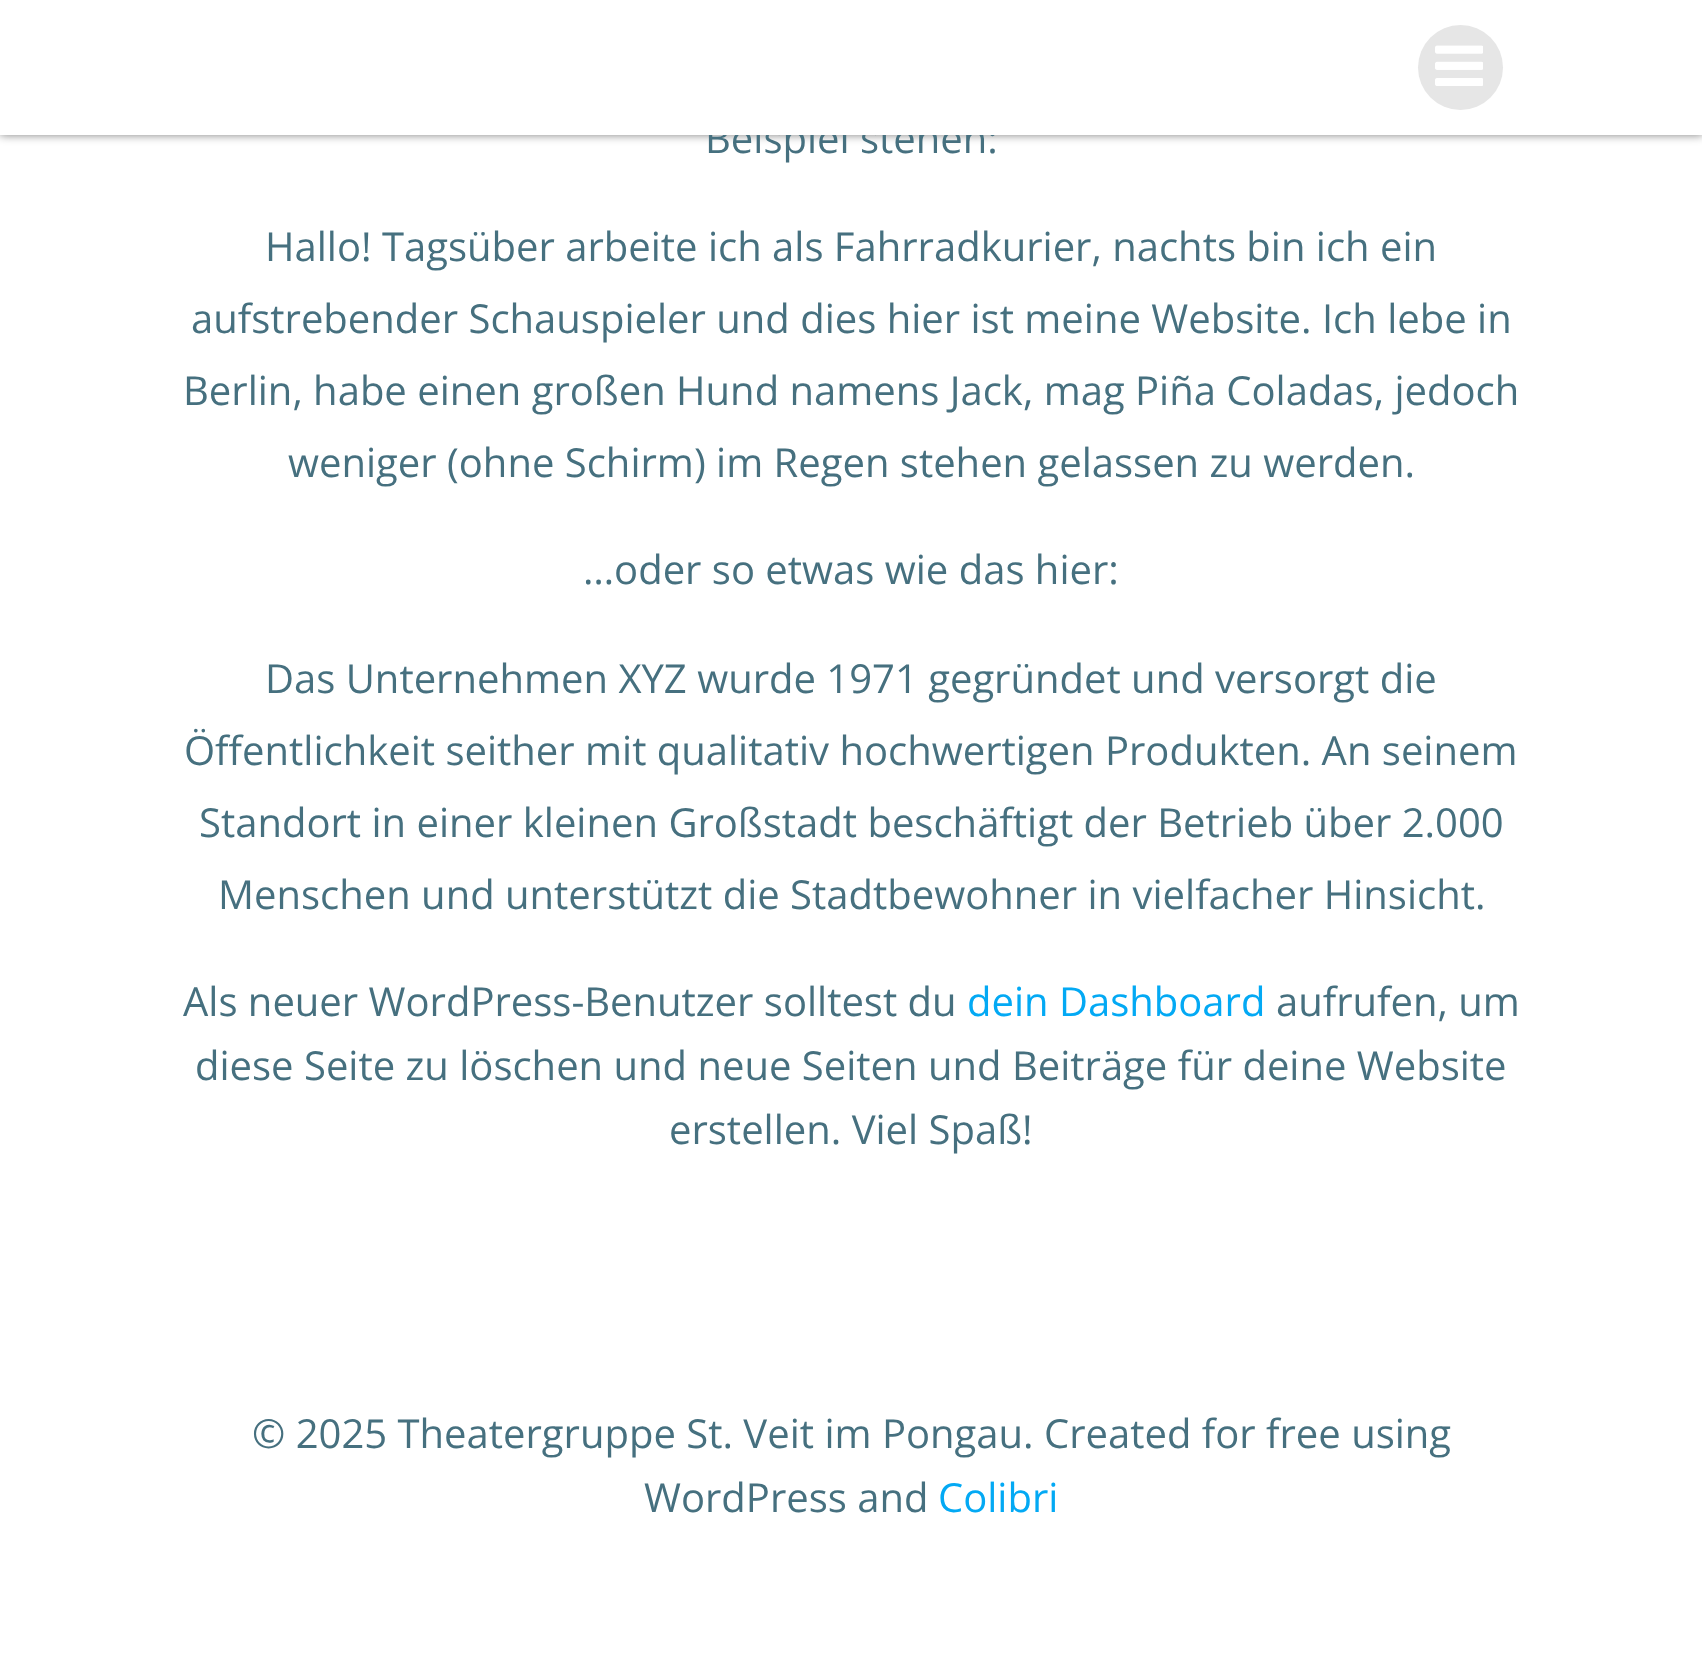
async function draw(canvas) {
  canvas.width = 1702;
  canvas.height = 1656;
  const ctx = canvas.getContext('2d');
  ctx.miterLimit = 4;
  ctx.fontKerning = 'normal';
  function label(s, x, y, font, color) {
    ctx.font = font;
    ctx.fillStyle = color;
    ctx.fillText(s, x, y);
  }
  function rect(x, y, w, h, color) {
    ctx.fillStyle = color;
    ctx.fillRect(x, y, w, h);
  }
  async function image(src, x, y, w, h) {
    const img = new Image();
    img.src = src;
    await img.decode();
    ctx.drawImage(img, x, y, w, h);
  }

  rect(0, 0, 1702, 1656, '#fff');
  ctx.fillStyle = '#00000080';
  ctx.filter = 'blur(5px)';
  ctx.beginPath();
  ctx.rect(0, 0, 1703, 135);
  ctx.fill();
  ctx.filter = 'none';
  label('Beispiel stehen:', 705, 153, '40px Open Sans', '#46707f');
  rect(0, 0, 1702, 135, '#fff');
  ctx.fillStyle = '#e6e6e6';
  ctx.beginPath();
  ctx.arc(1460.5, 67.5, 42.5, 0, 2 * Math.PI);
  ctx.fill();
  await image('assets/img1.png', 1435, 45, 48, 41);
  label('Hallo! Tagsüber arbeite ich als Fahrradkurier, nachts bin ich ein', 265, 261, '40px Open Sans', '#46707f');
  label('aufstrebender Schauspieler und dies hier ist meine Website. Ich lebe in', 191, 333, '40px Open Sans', '#46707f');
  label('Berlin, habe einen großen Hund namens Jack, mag Piña Coladas, jedoch', 183, 405, '40px Open Sans', '#46707f');
  label('weniger (ohne Schirm) im Regen stehen gelassen zu werden.', 288, 477, '40px Open Sans', '#46707f');
  label('…oder so etwas wie das hier:', 583, 584, '40px Open Sans', '#46707f');
  label('Das Unternehmen XYZ wurde 1971 gegründet und versorgt die', 265, 693, '40px Open Sans', '#46707f');
  label('Öffentlichkeit seither mit qualitativ hochwertigen Produkten. An seinem', 184, 765, '40px Open Sans', '#46707f');
  label('Standort in einer kleinen Großstadt beschäftigt der Betrieb über 2.000', 199, 837, '40px Open Sans', '#46707f');
  label('Menschen und unterstützt die Stadtbewohner in vielfacher Hinsicht.', 218, 909, '40px Open Sans', '#46707f');
  label('Als neuer WordPress-Benutzer solltest du', 183, 1016, '40px Open Sans', '#46707f');
  label('dein Dashboard', 967, 1016, '40px Open Sans', '#03a9f4');
  label('aufrufen, um', 1276, 1016, '40px Open Sans', '#46707f');
  label('diese Seite zu löschen und neue Seiten und Beiträge für deine Website', 195, 1080, '40px Open Sans', '#46707f');
  label('erstellen. Viel Spaß!', 669, 1144, '40px Open Sans', '#46707f');
  label('© 2025 Theatergruppe St. Veit im Pongau. Created for free using', 252, 1448, '40px Open Sans', '#46707f');
  label('WordPress and', 644, 1512, '40px Open Sans', '#46707f');
  label('Colibri', 938, 1512, '40px Open Sans', '#03a9f4');
}

draw(document.querySelector('canvas'));
